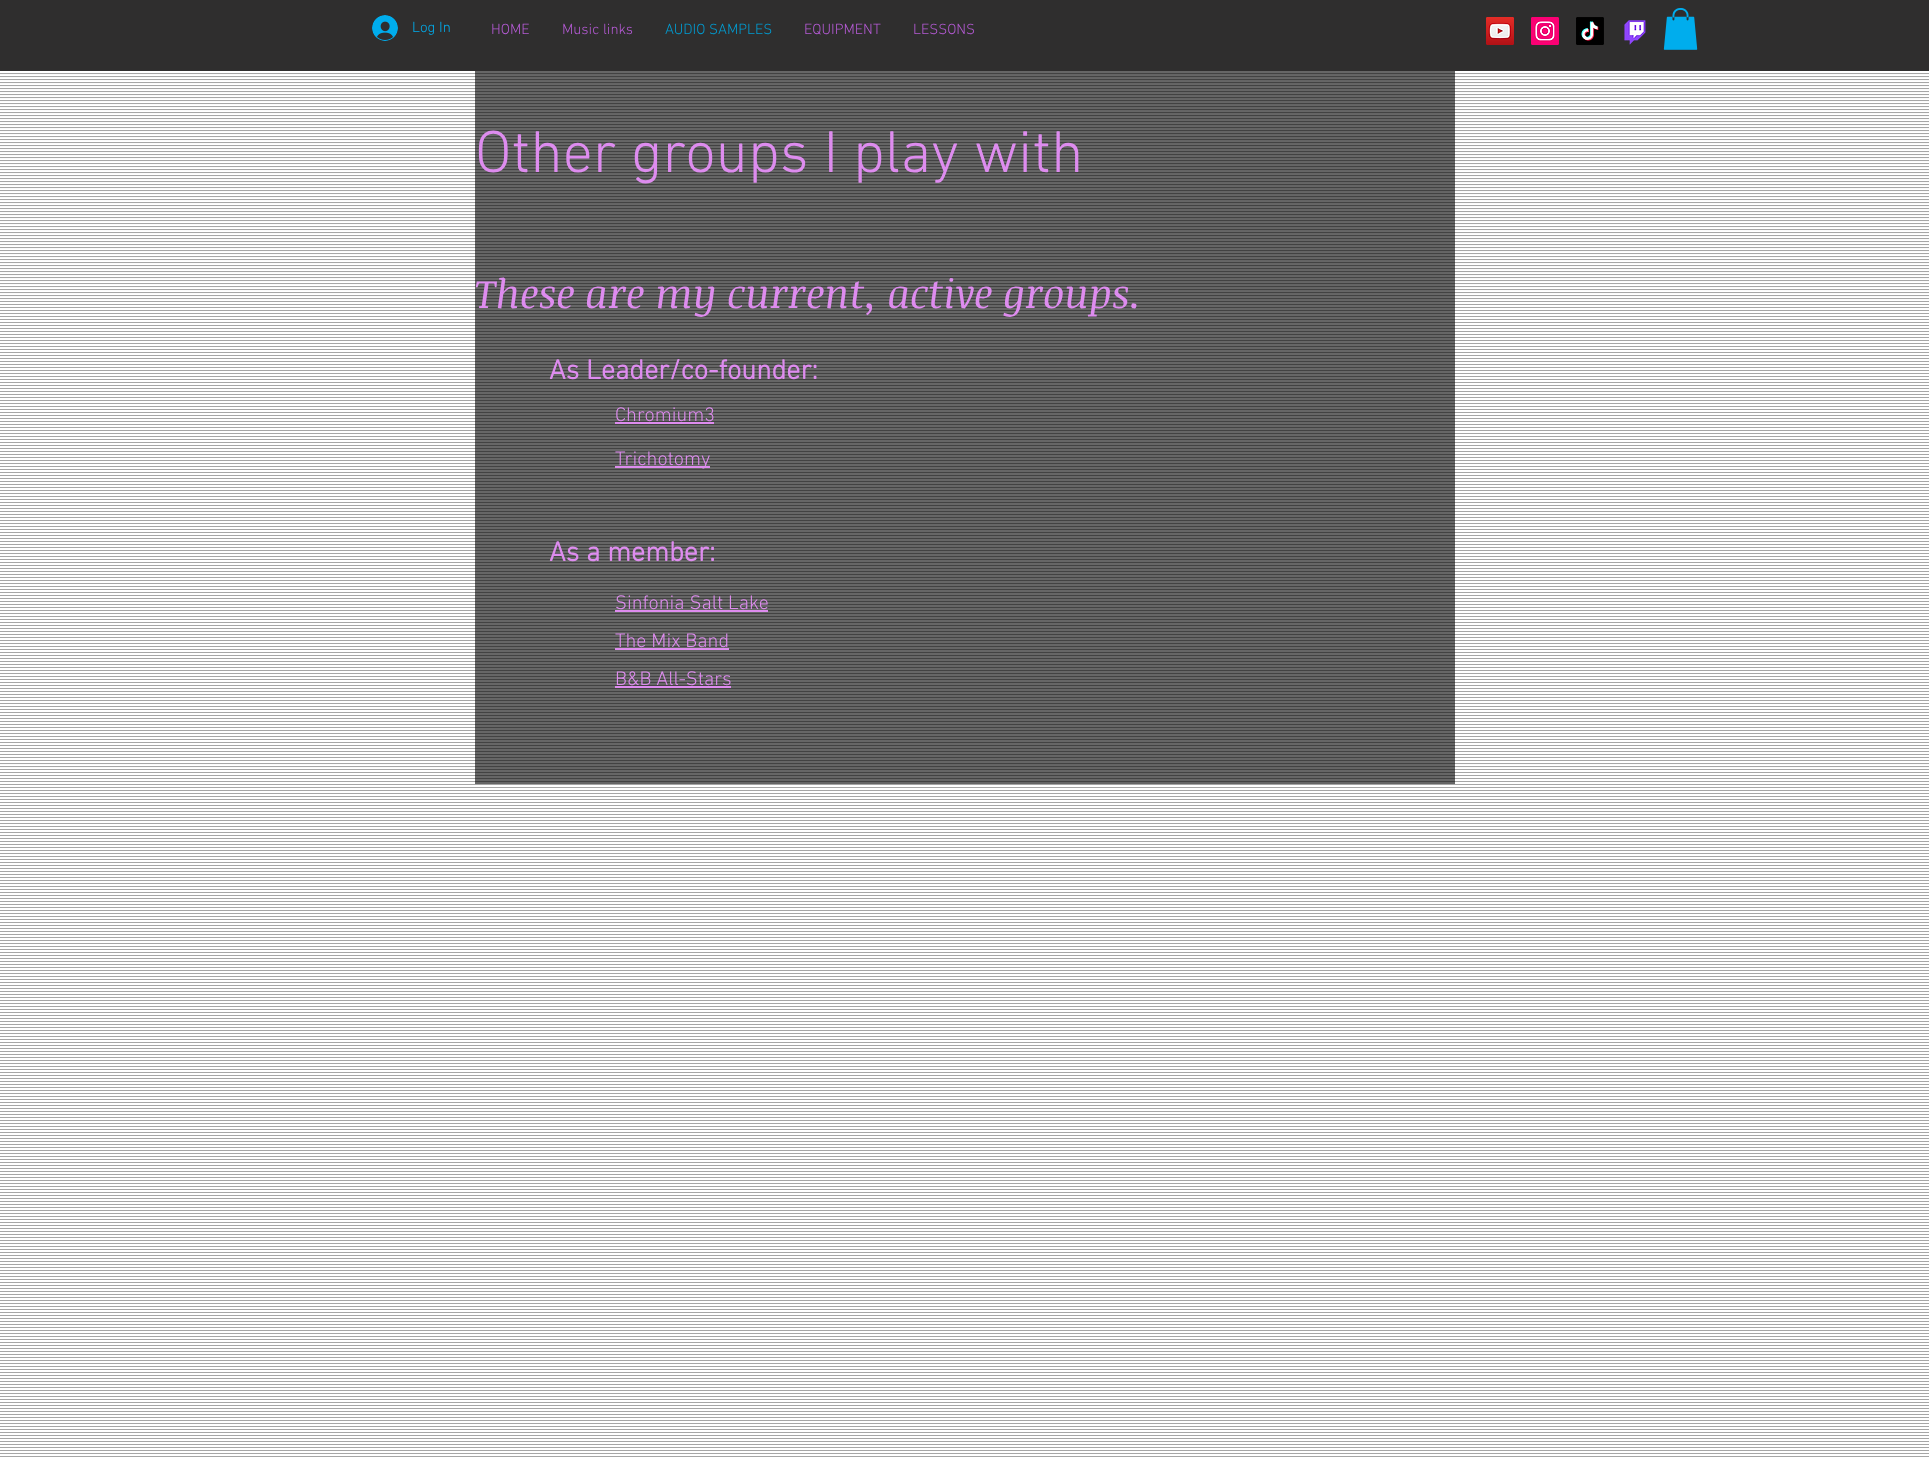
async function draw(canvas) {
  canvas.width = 1929;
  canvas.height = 1458;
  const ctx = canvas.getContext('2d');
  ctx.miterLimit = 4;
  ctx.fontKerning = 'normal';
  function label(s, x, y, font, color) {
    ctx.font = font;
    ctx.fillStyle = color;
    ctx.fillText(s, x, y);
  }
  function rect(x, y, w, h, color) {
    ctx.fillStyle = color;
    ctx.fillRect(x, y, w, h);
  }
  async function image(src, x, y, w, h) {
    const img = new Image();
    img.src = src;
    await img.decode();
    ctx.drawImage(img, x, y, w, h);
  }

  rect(0, 0, 1929, 1458, '#fff');
  rect(0, 0, 1929, 71, '#2f2e2e');
  await image('assets/img1.png', 372, 15, 26, 26);
  label('Log In', 412, 32, '300 15px "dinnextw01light"', '#00aded');
  label('HOME', 491, 34, '300 15px "dinnextw01light"', '#b45ad3');
  label('Music links', 562, 34, '300 15px "dinnextw01light"', '#b45ad3');
  label('AUDIO SAMPLES', 665, 34, '300 15px "dinnextw01light"', '#019cd2');
  label('EQUIPMENT', 804, 34, '300 15px "dinnextw01light"', '#b45ad3');
  label('LESSONS', 913, 34, '300 15px "dinnextw01light"', '#b45ad3');
  await image('assets/img2.png', 1486, 17, 28, 28);
  await image('assets/img3.png', 1531, 17, 28, 28);
  await image('assets/img4.png', 1576, 17, 28, 28);
  await image('assets/img5.png', 1624, 20, 22, 25);
  await image('assets/img6.png', 1663, 8, 35, 42);
  await image('assets/img7.png', 0, 73, 1929, 1384);
  rect(475, 71, 980, 713, '#00000099');
  label('Other groups I play with', 475, 172, '300 60px "dinnextw01light"', '#de8cef');
  label('These are my current, active groups.', 475, 308, 'italic 40px Noticia Text', '#de8cef');
  label('As Leader/co-founder:', 549, 379, 'bold 28px "dinnextw01light"', '#de8cef');
  label('Chromium3', 615, 421, '300 20px "dinnextw01light"', '#de8cef');
  rect(615, 422, 99, 2, '#de8cef');
  rect(615, 466, 95, 2, '#de8cef');
  label('Trichotomy', 615, 465, '300 20px "dinnextw01light"', '#de8cef');
  label('As a member:', 549, 561, 'bold 28px "dinnextw01light"', '#de8cef');
  label('Sinfonia Salt Lake', 615, 609, '300 20px "dinnextw01light"', '#de8cef');
  rect(615, 610, 153, 2, '#de8cef');
  label('The Mix Band', 615, 647, '300 20px "dinnextw01light"', '#de8cef');
  rect(615, 648, 114, 2, '#de8cef');
  label('B&B All-Stars', 615, 685, '300 20px "dinnextw01light"', '#de8cef');
  rect(615, 686, 116, 2, '#de8cef');
}

draw(document.querySelector('canvas'));
